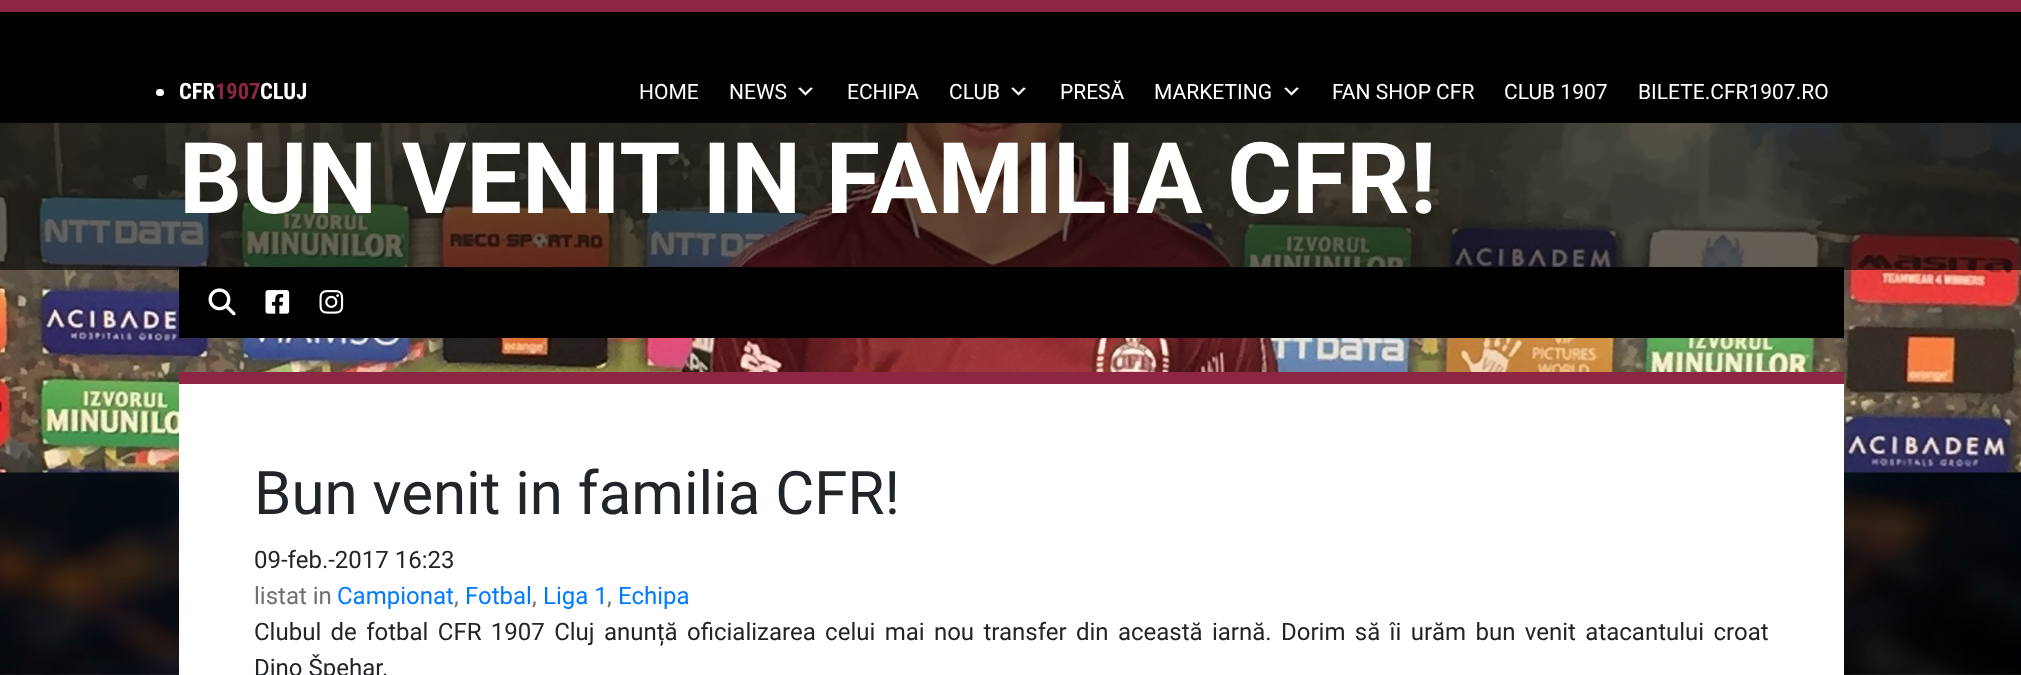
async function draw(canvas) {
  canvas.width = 2021;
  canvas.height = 675;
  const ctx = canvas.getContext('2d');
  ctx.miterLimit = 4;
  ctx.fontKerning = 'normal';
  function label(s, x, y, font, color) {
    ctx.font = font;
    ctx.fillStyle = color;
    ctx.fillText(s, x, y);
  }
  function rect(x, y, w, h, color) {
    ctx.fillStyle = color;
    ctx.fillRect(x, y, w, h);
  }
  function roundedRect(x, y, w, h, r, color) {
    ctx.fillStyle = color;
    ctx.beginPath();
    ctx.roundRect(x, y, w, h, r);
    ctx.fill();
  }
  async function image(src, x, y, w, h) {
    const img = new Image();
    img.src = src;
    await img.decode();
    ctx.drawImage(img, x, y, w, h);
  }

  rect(0, 0, 2021, 675, '#fff');
  await image('assets/img1.png', 0, 472, 2021, 203);
  rect(0, 0, 2021, 12, '#8d2642');
  rect(0, 12, 2021, 111, '#000');
  roundedRect(156, 89, 8, 7, 3.5, '#fff');
  label('CFR', 179, 99, 'bold 22.5px Roboto Condensed', '#fff');
  label('1907', 215, 99, 'bold 22.5px Roboto Condensed', '#8d2642');
  label('CLUJ', 260, 99, 'bold 22.5px Roboto Condensed', '#fff');
  label('HOME', 639, 99, '21px Roboto', '#fff');
  label('NEWS', 729, 99, '21px Roboto', '#fff');
  await image('assets/img2.png', 798, 87, 15, 9);
  label('ECHIPA', 847, 99, '21px Roboto', '#fff');
  label('CLUB', 949, 99, '21px Roboto', '#fff');
  await image('assets/img2.png', 1011, 87, 15, 9);
  label('PRESĂ', 1060, 99, '21px Roboto', '#fff');
  label('MARKETING', 1154, 99, '21px Roboto', '#fff');
  await image('assets/img2.png', 1284, 87, 15, 9);
  label('FAN SHOP CFR', 1332, 99, '21px Roboto', '#fff');
  label('CLUB 1907', 1504, 99, '21px Roboto', '#fff');
  label('BILETE.CFR1907.RO', 1638, 99, '21px Roboto', '#fff');
  await image('assets/img3.png', 0, 123, 2021, 350);
  rect(179, 267, 1665, 71, '#000');
  rect(0, 123, 2021, 147, '#00000099');
  label('BUN VENIT IN FAMILIA CFR!', 179, 213, 'bold 98.9px Roboto', '#fff');
  await image('assets/img4.png', 208, 288, 28, 28);
  await image('assets/img5.png', 265, 290, 25, 24);
  await image('assets/img6.png', 319, 290, 25, 24);
  rect(179, 384, 1665, 291, '#fff');
  rect(179, 372, 1665, 12, '#8d2642');
  label('Bun venit in familia CFR!', 254, 514, '60px Roboto', '#212529');
  label('09-feb.-2017 16:23', 254, 568, '24px Roboto', '#212529');
  label('listat in', 254, 604, '24px Roboto', '#707070');
  label('Campionat', 337, 604, '24px Roboto', '#007bff');
  label(',', 454, 604, '24px Roboto', '#707070');
  label('Fotbal', 465, 604, '24px Roboto', '#007bff');
  label(',', 532, 604, '24px Roboto', '#707070');
  label('Liga 1', 543, 604, '24px Roboto', '#007bff');
  label(',', 607, 604, '24px Roboto', '#707070');
  label('Echipa', 618, 604, '24px Roboto', '#007bff');
  ctx.wordSpacing = '3.4px';
  label('Clubul de fotbal CFR 1907 Cluj anunță oficializarea celui mai nou transfer din această iarnă. Dorim să îi urăm bun venit atacantului croat', 254, 640, '24px Roboto', '#212529');
  ctx.wordSpacing = '0px';
  label('Dino Špehar.', 254, 676, '24px Roboto', '#212529');
}

draw(document.querySelector('canvas'));
